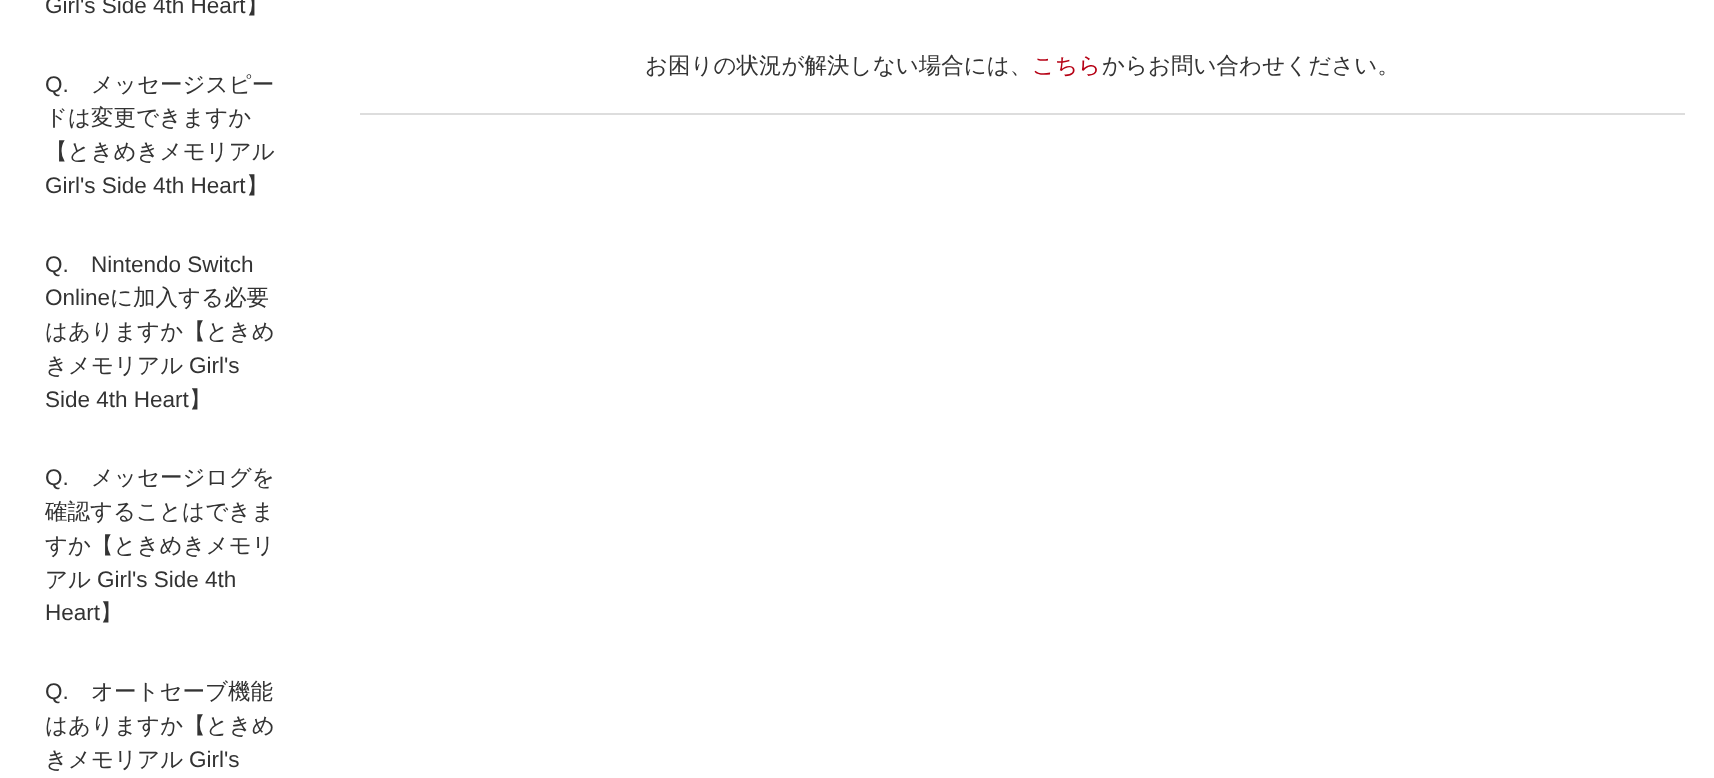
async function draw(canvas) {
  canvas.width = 1714;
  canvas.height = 778;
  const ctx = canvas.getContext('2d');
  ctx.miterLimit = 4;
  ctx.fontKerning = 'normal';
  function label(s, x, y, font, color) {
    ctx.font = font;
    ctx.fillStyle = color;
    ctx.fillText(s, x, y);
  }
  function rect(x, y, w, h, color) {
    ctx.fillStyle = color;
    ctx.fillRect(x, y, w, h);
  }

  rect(0, 0, 1714, 778, '#fff');
  label('Girl\'s Side 4th Heart', 45, 13, '22.5px Liberation Sans', '#333');
  label('】', 246, 13, '500 22.5px WenQuanYi Zen Hei', '#333');
  label('Q.', 45, 92, '22.5px Liberation Sans', '#333');
  label('メッセージスピー', 91, 92, '500 22.5px WenQuanYi Zen Hei', '#333');
  label('ドは変更できますか', 45, 125, '500 22.5px WenQuanYi Zen Hei', '#333');
  label('【ときめきメモリアル', 45, 159, '500 22.5px WenQuanYi Zen Hei', '#333');
  label('Girl\'s Side 4th Heart', 45, 193, '22.5px Liberation Sans', '#333');
  label('】', 246, 193, '500 22.5px WenQuanYi Zen Hei', '#333');
  label('Q.', 45, 272, '22.5px Liberation Sans', '#333');
  label('Nintendo Switch', 91, 272, '22.5px Liberation Sans', '#333');
  label('Online', 45, 305, '22.5px Liberation Sans', '#333');
  label('に加入する必要', 110, 305, '500 22.5px WenQuanYi Zen Hei', '#333');
  label('はありますか【ときめ', 45, 339, '500 22.5px WenQuanYi Zen Hei', '#333');
  label('きメモリアル', 45, 373, '500 22.5px WenQuanYi Zen Hei', '#333');
  label('Girl\'s', 189, 373, '22.5px Liberation Sans', '#333');
  label('Side 4th Heart', 45, 407, '22.5px Liberation Sans', '#333');
  label('】', 189, 407, '500 22.5px WenQuanYi Zen Hei', '#333');
  label('Q.', 45, 485, '22.5px Liberation Sans', '#333');
  label('メッセージログを', 91, 485, '500 22.5px WenQuanYi Zen Hei', '#333');
  label('確認することはできま', 45, 519, '500 22.5px WenQuanYi Zen Hei', '#333');
  label('すか【ときめきメモリ', 45, 553, '500 22.5px WenQuanYi Zen Hei', '#333');
  label('アル', 45, 587, '500 22.5px WenQuanYi Zen Hei', '#333');
  label('Girl\'s Side 4th', 97, 587, '22.5px Liberation Sans', '#333');
  label('Heart', 45, 620, '22.5px Liberation Sans', '#333');
  label('】', 100, 620, '500 22.5px WenQuanYi Zen Hei', '#333');
  label('Q.', 45, 699, '22.5px Liberation Sans', '#333');
  label('オートセーブ機能', 91, 699, '500 22.5px WenQuanYi Zen Hei', '#333');
  label('はありますか【ときめ', 45, 733, '500 22.5px WenQuanYi Zen Hei', '#333');
  label('きメモリアル', 45, 767, '500 22.5px WenQuanYi Zen Hei', '#333');
  label('Girl\'s', 189, 767, '22.5px Liberation Sans', '#333');
  label('お困りの状況が解決しない場合には、', 645, 73, '500 22.5px WenQuanYi Zen Hei', '#333');
  label('こちら', 1032, 73, '500 22.5px WenQuanYi Zen Hei', '#b60014');
  label('からお問い合わせください。', 1102, 73, '500 22.5px WenQuanYi Zen Hei', '#333');
  rect(360, 113, 1325, 2, '#ddd');
}

draw(document.querySelector('canvas'));
